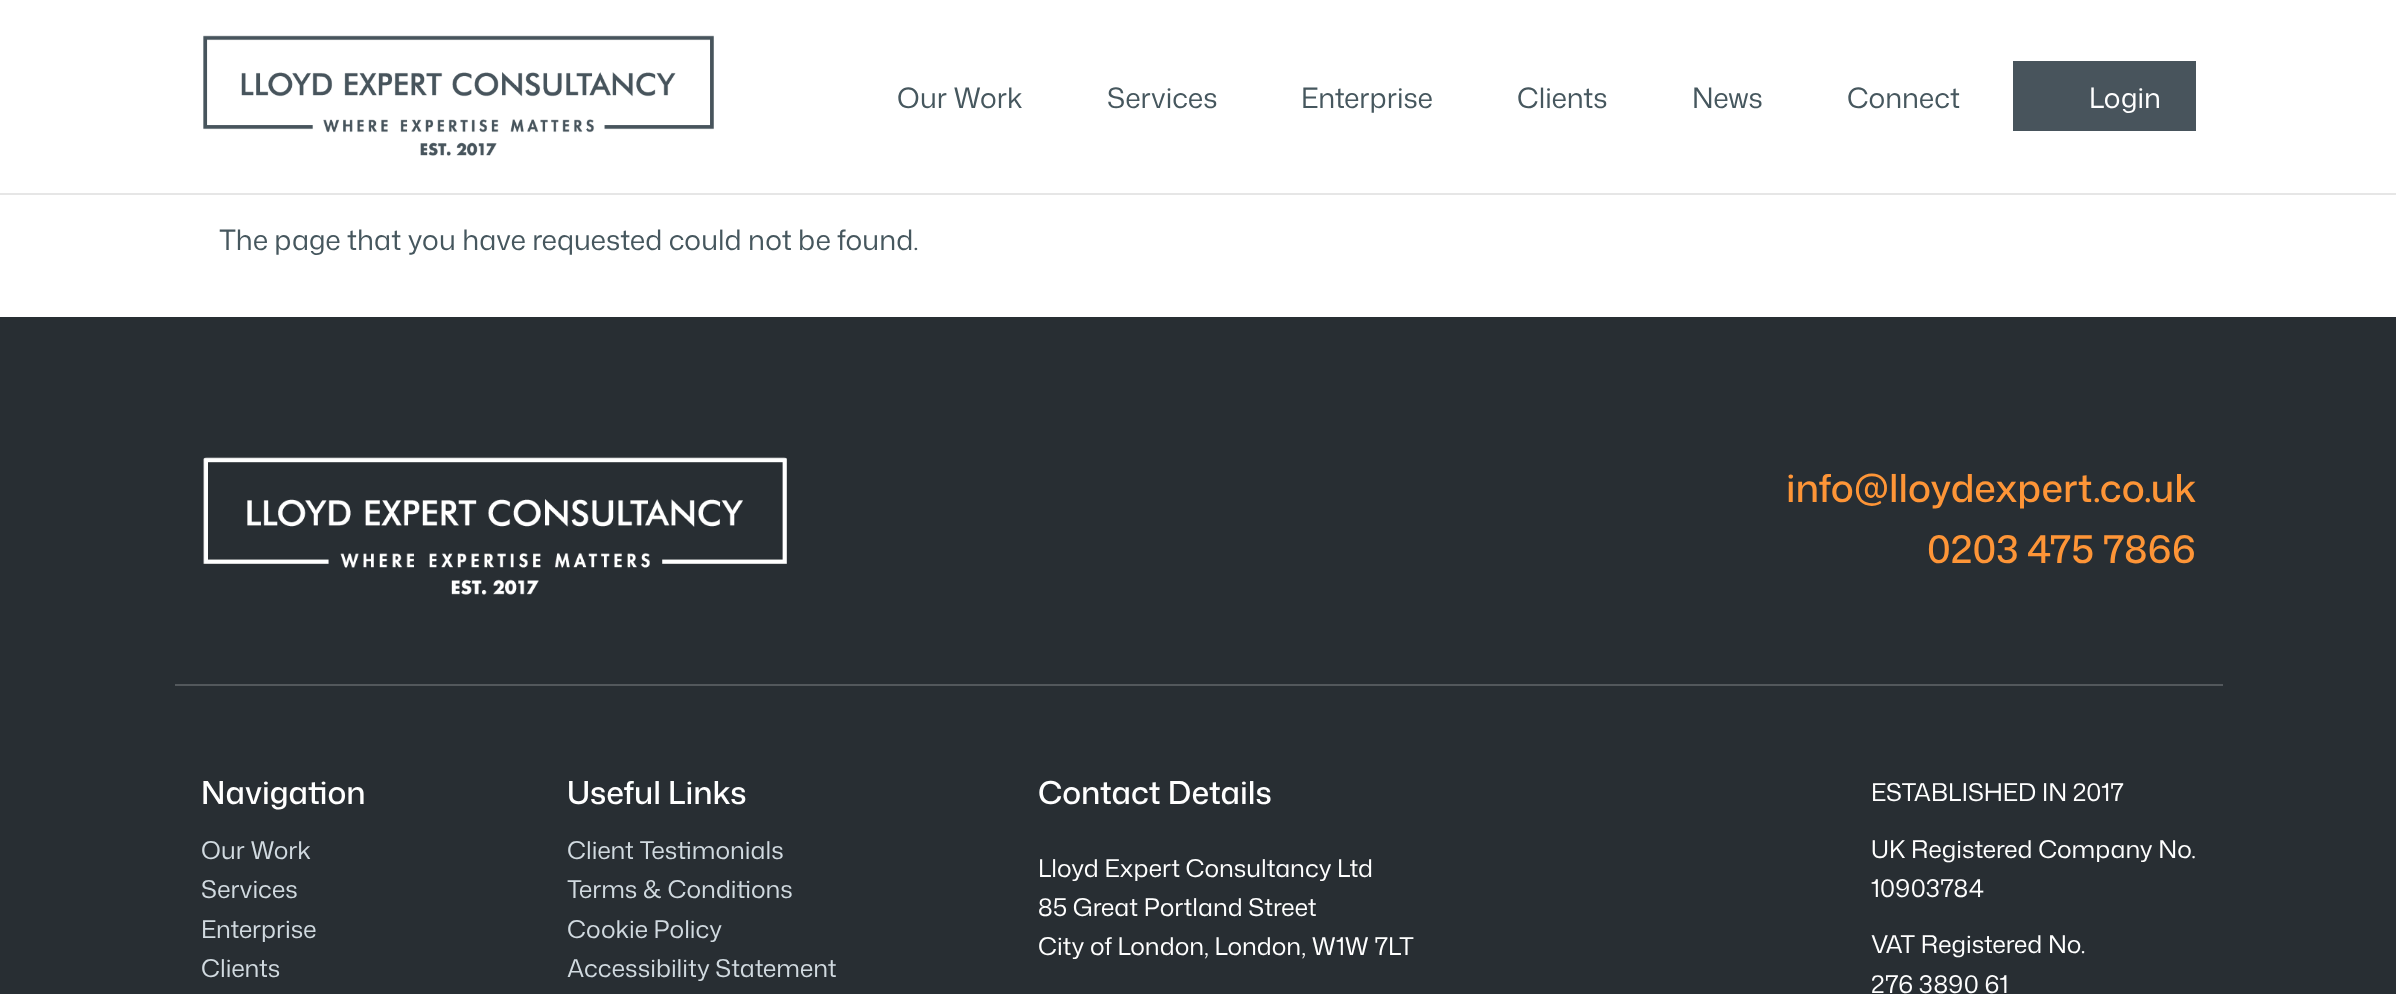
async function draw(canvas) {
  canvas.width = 2396;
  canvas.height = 994;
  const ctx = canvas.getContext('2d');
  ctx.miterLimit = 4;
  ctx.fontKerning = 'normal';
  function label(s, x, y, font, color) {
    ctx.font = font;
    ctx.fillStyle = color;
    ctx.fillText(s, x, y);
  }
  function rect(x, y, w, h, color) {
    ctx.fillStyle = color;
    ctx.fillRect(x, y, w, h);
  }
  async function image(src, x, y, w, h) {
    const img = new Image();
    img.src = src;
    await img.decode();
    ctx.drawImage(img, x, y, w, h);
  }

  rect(0, 0, 2396, 994, '#fff');
  rect(0, 193, 2396, 2, '#e6e6e6');
  await image('assets/img1.png', 203, 35, 511, 121);
  label('Our Work', 897, 108, '28px Mona Sans', '#46575e');
  label('Services', 1107, 108, '28px Mona Sans', '#46575e');
  label('Enterprise', 1301, 108, '28px Mona Sans', '#46575e');
  label('Clients', 1517, 108, '28px Mona Sans', '#46575e');
  label('News', 1692, 108, '28px Mona Sans', '#46575e');
  label('Connect', 1847, 108, '28px Mona Sans', '#46575e');
  rect(2013, 61, 183, 70, '#48545c');
  label('Login', 2089, 108, '28px Mona Sans', '#fff');
  label('The page that you have requested could not be found.', 219, 250, '28px Mona Sans', '#46575e');
  rect(0, 317, 2396, 677, '#282e33');
  rect(175, 684, 2048, 2, '#53585c');
  await image('assets/img2.png', 203, 457, 584, 138);
  label('info@lloydexpert.co.uk', 1786, 502, '500 38.5px Mona Sans', '#fe9537');
  label('0203 475 7866', 1927, 563, '500 38.5px Mona Sans', '#fe9537');
  label('Navigation', 201, 804, '500 31.5px Mona Sans', '#fff');
  label('Our Work', 201, 859, '24.5px Mona Sans', '#d1dae0');
  label('Services', 201, 898, '24.5px Mona Sans', '#d1dae0');
  label('Enterprise', 201, 938, '24.5px Mona Sans', '#d1dae0');
  label('Clients', 201, 977, '24.5px Mona Sans', '#d1dae0');
  label('Useful Links', 567, 804, '500 31.5px Mona Sans', '#fff');
  label('Client Testimonials', 567, 859, '24.5px Mona Sans', '#d1dae0');
  label('Terms & Conditions', 567, 898, '24.5px Mona Sans', '#d1dae0');
  label('Cookie Policy', 567, 938, '24.5px Mona Sans', '#d1dae0');
  label('Accessibility Statement', 567, 977, '24.5px Mona Sans', '#d1dae0');
  label('Contact Details', 1038, 804, '500 31.5px Mona Sans', '#fff');
  label('Lloyd Expert Consultancy Ltd', 1038, 877, '24.5px Mona Sans', '#fff');
  label('85 Great Portland Street', 1038, 916, '24.5px Mona Sans', '#fff');
  label('City of London, London, W1W 7LT', 1038, 955, '24.5px Mona Sans', '#fff');
  label('ESTABLISHED IN 2017', 1871, 801, '24.5px Mona Sans', '#fff');
  label('UK Registered Company No.', 1871, 858, '24.5px Mona Sans', '#fff');
  label('10903784', 1871, 897, '24.5px Mona Sans', '#fff');
  label('VAT Registered No.', 1871, 953, '24.5px Mona Sans', '#fff');
  label('276 3890 61', 1871, 993, '24.5px Mona Sans', '#fff');
}

draw(document.querySelector('canvas'));
